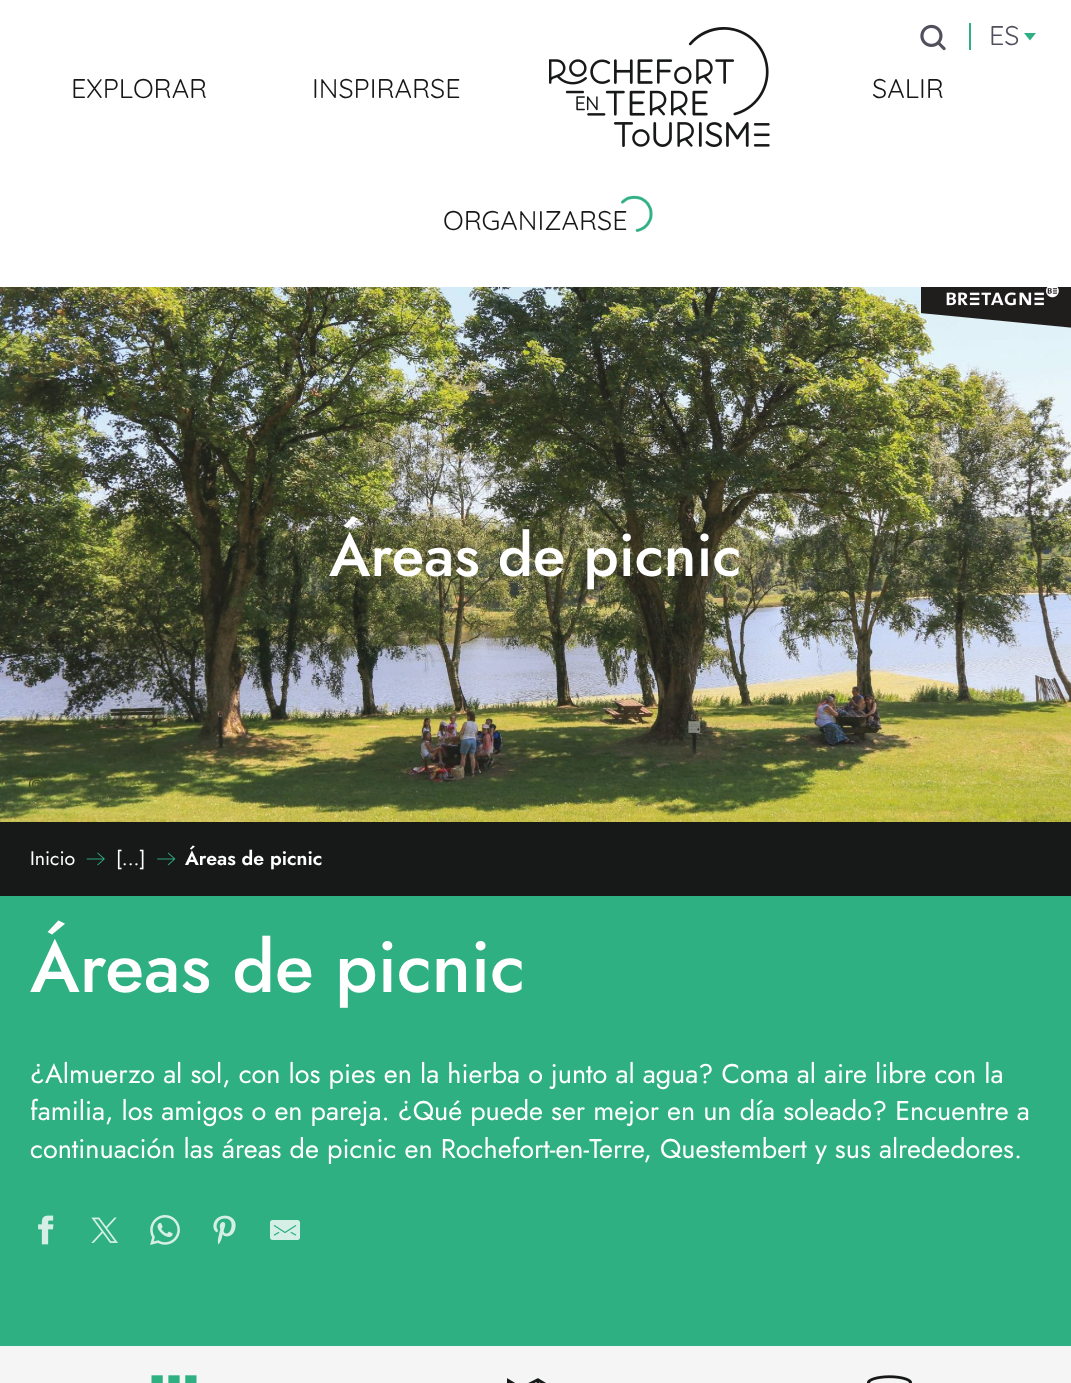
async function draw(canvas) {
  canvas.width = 1071;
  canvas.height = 1383;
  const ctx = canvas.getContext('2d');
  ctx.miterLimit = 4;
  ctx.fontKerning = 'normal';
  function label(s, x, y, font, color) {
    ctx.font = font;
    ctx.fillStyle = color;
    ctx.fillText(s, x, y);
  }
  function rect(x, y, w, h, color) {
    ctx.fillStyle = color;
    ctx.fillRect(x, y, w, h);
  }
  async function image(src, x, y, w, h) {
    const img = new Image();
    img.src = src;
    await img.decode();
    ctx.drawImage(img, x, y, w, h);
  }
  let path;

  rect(0, 0, 1071, 1383, '#fff');
  await image('assets/img1.png', 920, 24, 26, 27);
  rect(969, 23, 2, 27, '#2fb083');
  label('ES', 989, 45, '27px Quicksand', '#53505d');
  ctx.fillStyle = '#2fb083';
  path = new Path2D('M1024 33H1036L1030 40.5Z');
  ctx.fill(path);
  label('EXPLORAR', 71, 98, '27px Quicksand', '#171918');
  label('INSPIRARSE', 312, 98, '27px Quicksand', '#171918');
  await image('assets/img2.png', 549, 27, 221, 120);
  label('SALIR', 872, 98, '27px Quicksand', '#171918');
  label('ORGANIZARSE', 443, 230, '27px Quicksand', '#171918');
  await image('assets/img3.png', 621, 195, 32, 37);
  await image('assets/img5.png', 0, 287, 1071, 535);
  await image('assets/img4.png', 921, 287, 150, 41);
  label('Áreas de picnic', 329, 576, '500 60px Jost', '#fff');
  label('©', 28, 792, '22px Jost', '#414f1f');
  rect(0, 896, 1071, 450, '#2fb083');
  rect(0, 822, 1071, 74, '#171918');
  label('Inicio', 30, 865, '19.5px Jost', '#fff');
  await image('assets/img6.png', 86, 852, 19, 14);
  label('[...]', 116, 865, '19.5px Jost', '#fff');
  await image('assets/img7.png', 157, 852, 19, 14);
  label('Áreas de picnic', 185, 865, '600 19.5px Jost', '#fff');
  label('Áreas de picnic', 30, 992, '500 72px Jost', '#fff');
  label('¿Almuerzo al sol, con los pies en la hierba o junto al agua? Coma al aire libre con la', 30, 1083, '27px Jost', '#fff');
  label('familia, los amigos o en pareja. ¿Qué puede ser mejor en un día soleado? Encuentre a', 30, 1120, '27px Jost', '#fff');
  label('continuación las áreas de picnic en Rochefort-en-Terre, Questembert y sus alrededores.', 30, 1158, '27px Jost', '#fff');
  await image('assets/img8.png', 38, 1215, 16, 30);
  await image('assets/img9.png', 91, 1217, 27, 26);
  await image('assets/img10.png', 150, 1215, 30, 30);
  await image('assets/img11.png', 213, 1215, 23, 30);
  await image('assets/img12.png', 270, 1220, 30, 20);
  rect(0, 1346, 1071, 37, '#f5f5f5');
  await image('assets/img13.png', 151, 1375, 46, 8);
  await image('assets/img14.png', 507, 1378, 39, 5);
  await image('assets/img15.png', 867, 1375, 45, 8);
}

draw(document.querySelector('canvas'));
